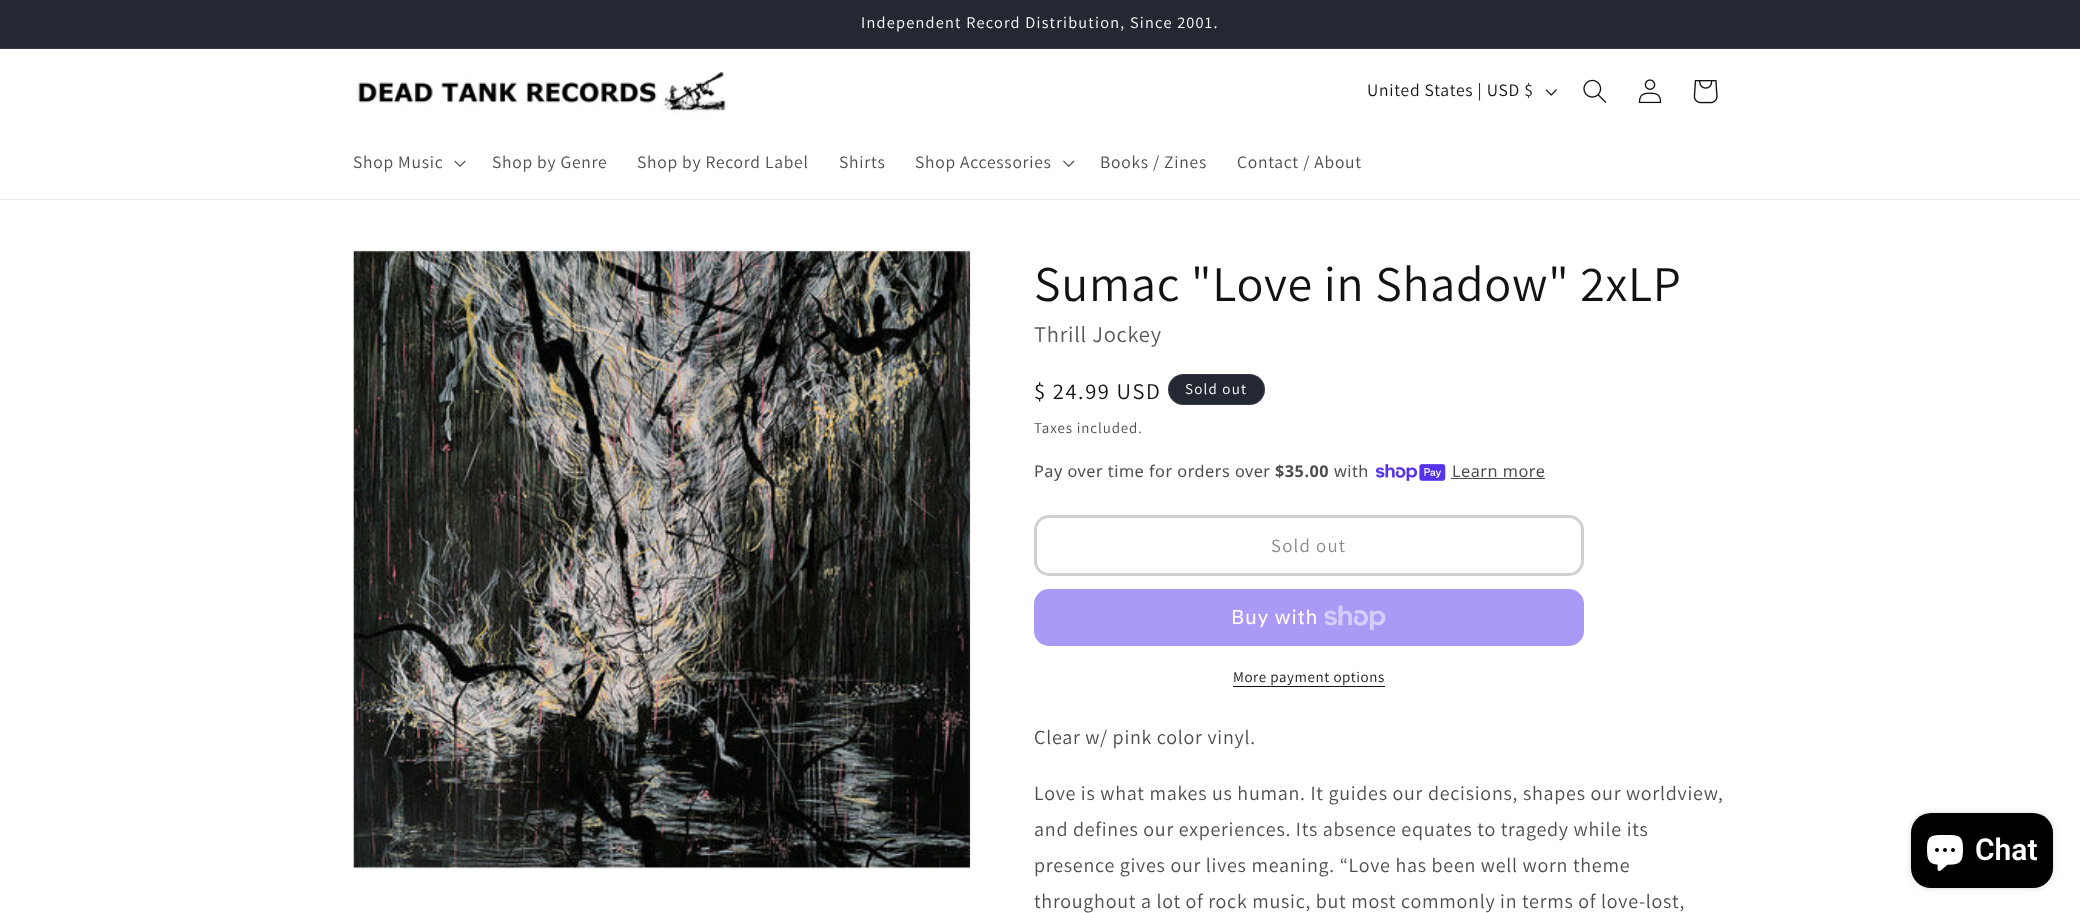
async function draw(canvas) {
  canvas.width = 2080;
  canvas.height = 913;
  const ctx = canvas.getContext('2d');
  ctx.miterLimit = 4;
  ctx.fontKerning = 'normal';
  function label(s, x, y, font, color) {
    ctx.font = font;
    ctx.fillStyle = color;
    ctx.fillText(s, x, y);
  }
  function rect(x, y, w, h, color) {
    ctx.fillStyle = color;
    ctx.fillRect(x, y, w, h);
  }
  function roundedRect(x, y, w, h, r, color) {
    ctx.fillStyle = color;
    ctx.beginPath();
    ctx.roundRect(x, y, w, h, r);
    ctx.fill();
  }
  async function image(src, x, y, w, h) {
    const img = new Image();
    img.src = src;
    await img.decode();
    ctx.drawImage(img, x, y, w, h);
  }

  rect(0, 0, 2080, 913, '#fff');
  rect(0, 0, 2080, 48, '#242833');
  rect(0, 48, 2080, 1, '#363943');
  ctx.letterSpacing = '1.25px';
  label('Independent Record Distribution, Since 2001.', 861, 28, '16.25px Assistant', '#fff');
  rect(0, 199, 2080, 1, '#ececec');
  await image('assets/img1.png', 356, 71, 372, 43);
  ctx.letterSpacing = '0.75px';
  label('United States | USD $', 1367, 96, '17.5px Assistant', '#121212');
  await image('assets/img2.png', 1545, 89, 12, 7);
  await image('assets/img3.png', 1583, 79, 24, 24);
  await image('assets/img4.png', 1638, 79, 24, 25);
  await image('assets/img5.png', 1693, 80, 25, 24);
  label('Shop Music', 353, 168, '17.5px Assistant', '#4d4d4d');
  await image('assets/img6.png', 454, 160, 12, 7);
  label('Shop by Genre', 492, 168, '17.5px Assistant', '#4d4d4d');
  label('Shop by Record Label', 637, 168, '17.5px Assistant', '#4d4d4d');
  label('Shirts', 839, 168, '17.5px Assistant', '#4d4d4d');
  label('Shop Accessories', 915, 168, '17.5px Assistant', '#4d4d4d');
  await image('assets/img7.png', 1063, 160, 12, 7);
  label('Books / Zines', 1100, 168, '17.5px Assistant', '#4d4d4d');
  label('Contact / About', 1237, 168, '17.5px Assistant', '#4d4d4d');
  ctx.strokeStyle = '#f3f3f3';
  ctx.strokeRect(353.5, 250.5, 617, 618);
  await image('assets/img8.png', 353, 251, 617, 617);
  label('Sumac "Love in Shadow" 2xLP', 1034, 301, '50px Assistant', '#121212');
  label('Thrill Jockey', 1034, 342, '22.5px Assistant', '#595959');
  ctx.letterSpacing = '1.6px';
  label('$ 24.99 USD', 1034, 399, '22.5px Assistant', '#121212');
  roundedRect(1168, 374, 97, 31, 15.5, '#242833');
  ctx.beginPath();
  ctx.roundRect(1168.5, 374.5, 96, 30, 15);
  ctx.strokeStyle = '#ffffff1a';
  ctx.stroke();
  ctx.letterSpacing = '1.25px';
  label('Sold out', 1185, 394, '15px Assistant', '#fff');
  ctx.letterSpacing = '0.9px';
  label('Taxes included.', 1034, 433, '15px Assistant', '#4d4d4d');
  ctx.letterSpacing = '0.5px';
  label('Pay over time for orders over', 1034, 477, '16.25px Noto Sans', '#4d4d4d');
  label('$35.00', 1275, 477, 'bold 16.25px Noto Sans', '#4d4d4d');
  label('with', 1334, 477, '16.25px Noto Sans', '#4d4d4d');
  await image('assets/img9.png', 1376, 464, 70, 17);
  label('Learn more', 1452, 477, '16.25px Noto Sans', '#4d4d4d');
  rect(1451, 478, 94, 1, '#4d4d4d');
  ctx.beginPath();
  ctx.roundRect(1035.5, 516.5, 547, 58, 13.5);
  ctx.strokeStyle = '#d0d0d0';
  ctx.lineWidth = 3;
  ctx.stroke();
  ctx.letterSpacing = '1.25px';
  label('Sold out', 1271, 552, '18.75px Assistant', '#898989');
  roundedRect(1034, 589, 550, 57, 15, '#aa99f5');
  ctx.letterSpacing = '0.75px';
  label('Buy with', 1231, 624, '20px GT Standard', '#fff');
  await image('assets/img10.png', 1324, 605, 62, 25);
  ctx.letterSpacing = '0.6px';
  label('More payment options', 1233, 682, '15px Assistant', '#121212');
  rect(1233, 686, 152, 1, '#121212');
  ctx.letterSpacing = '0.75px';
  label('Clear w/ pink color vinyl.', 1034, 744, '20px Assistant', '#4d4d4d');
  label('Love is what makes us human. It guides our decisions, shapes our worldview,', 1034, 800, '20px Assistant', '#4d4d4d');
  label('and defines our experiences. Its absence equates to tragedy while its', 1034, 836, '20px Assistant', '#4d4d4d');
  label('presence gives our lives meaning. “Love has been well worn theme', 1034, 872, '20px Assistant', '#4d4d4d');
  label('throughout a lot of rock music, but most commonly in terms of love-lost,', 1034, 908, '20px Assistant', '#4d4d4d');
  ctx.fillStyle = '#00000026';
  ctx.filter = 'blur(3px)';
  ctx.beginPath();
  ctx.roundRect(1911, 813, 142, 75, 20);
  ctx.fill();
  ctx.filter = 'none';
  roundedRect(1911, 813, 142, 75, 20, '#000');
  await image('assets/img11.png', 1927, 835, 36, 36);
  ctx.letterSpacing = '0px';
  label('Chat', 1975, 860, '600 30px Roboto', '#fff');
}

draw(document.querySelector('canvas'));
